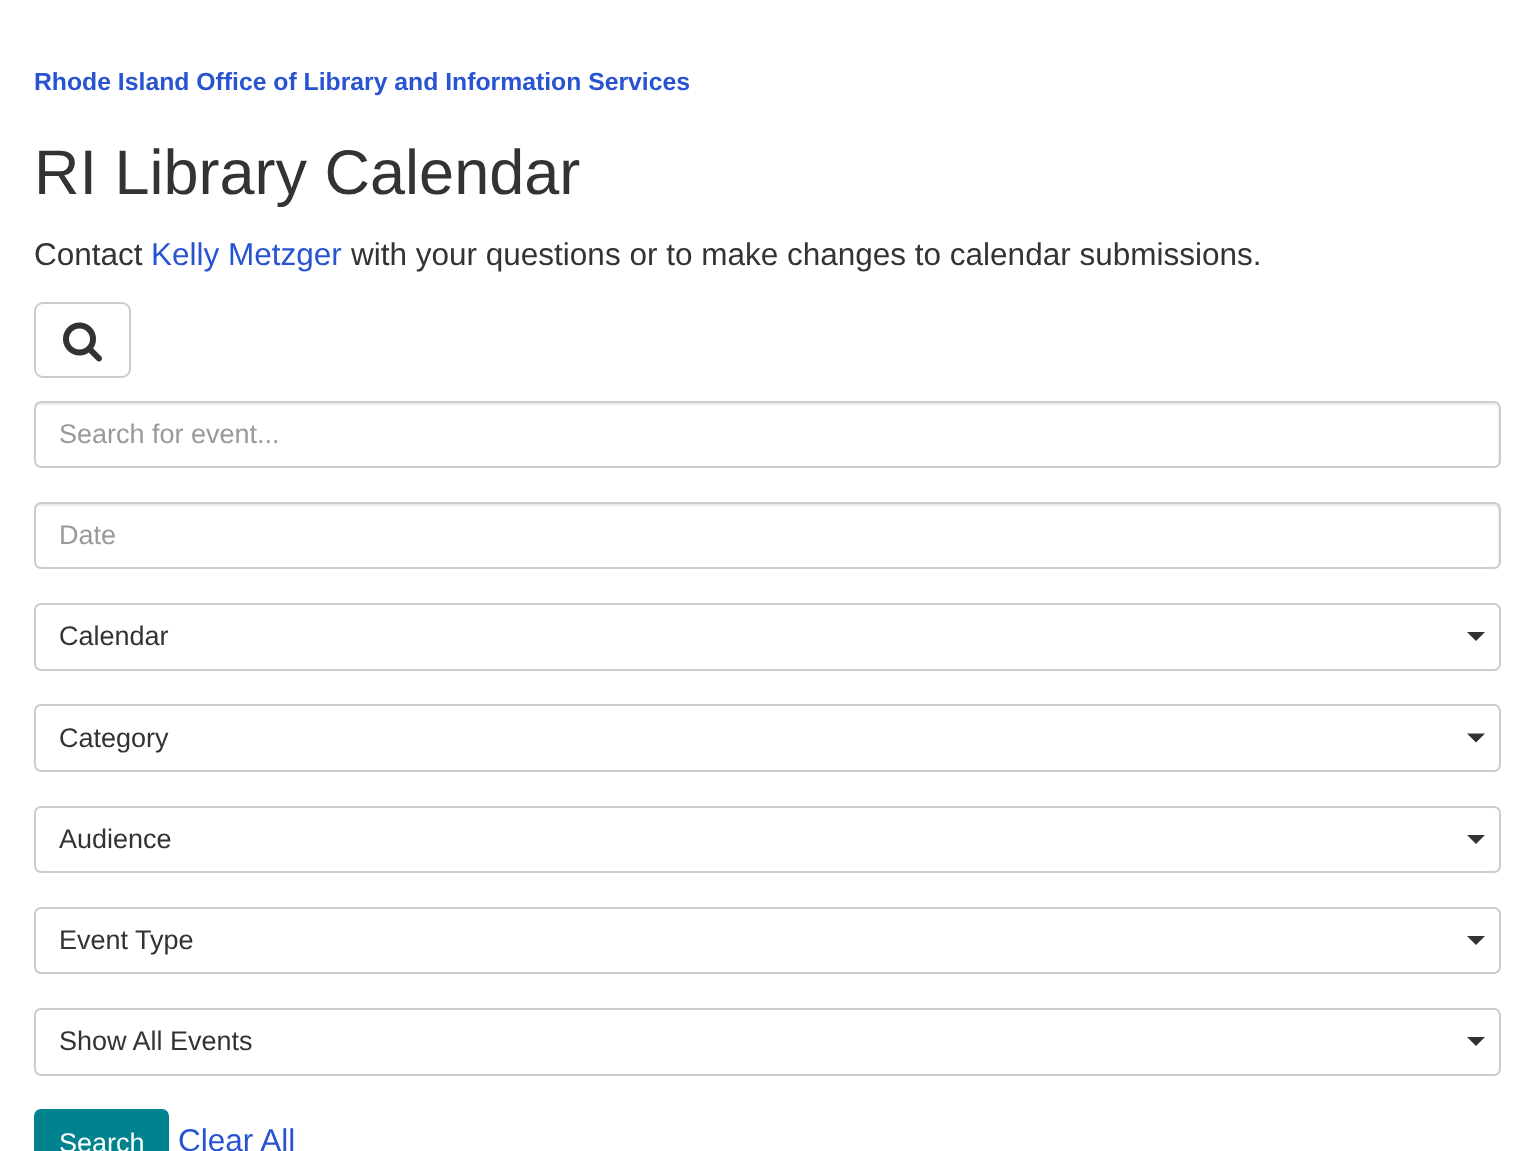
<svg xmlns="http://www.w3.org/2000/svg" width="1533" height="1151">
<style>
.a{font:bold 24.75px Liberation Sans;fill:#2954d1}
.b{font:63px Liberation Sans;fill:#333}
.c{font:31.5px Liberation Sans;fill:#333}
.d{font:31.5px Liberation Sans;fill:#2954d1}
.e{font:27px Liberation Sans;fill:#999}
.f{font:27px Liberation Sans;fill:#333}
.g{font:27px Liberation Sans;fill:#fff}
</style>
<rect width="100%" height="100%" fill="#fff"/>
<rect fill="none" stroke="#ccc" stroke-width="2" x="35" y="303" width="95" height="74" rx="8"/>
<image href="1.png" x="63" y="322" width="39" height="40"/>
<path fill="#ececec" d="M40 405h1454c2 0 4 2 4 5v54c1-1 1-2 1-3v-53c0-3-2-5-5-5h-1453c-3 0-5 2-5 5v2c0-3 2-5 4-5z"/>
<rect fill="none" stroke="#ccc" stroke-width="2" x="35" y="402" width="1465" height="65" rx="6"/>
<path fill="#ececec" d="M40 506h1454c2 0 4 2 4 5v54c1-1 1-2 1-3v-53c0-3-2-5-5-5h-1453c-3 0-5 2-5 5v2c0-3 2-5 4-5z"/>
<rect fill="none" stroke="#ccc" stroke-width="2" x="35" y="503" width="1465" height="65" rx="6"/>
<rect fill="none" stroke="#ccc" stroke-width="2" x="35" y="604" width="1465" height="66" rx="6"/>
<path fill="#333" d="M1467 632h18l-9 9z"/>
<rect fill="none" stroke="#ccc" stroke-width="2" x="35" y="705" width="1465" height="66" rx="6"/>
<path fill="#333" d="M1467 733.5h18l-9 9z"/>
<rect fill="none" stroke="#ccc" stroke-width="2" x="35" y="807" width="1465" height="65" rx="6"/>
<path fill="#333" d="M1467 835h18l-9 9z"/>
<rect fill="none" stroke="#ccc" stroke-width="2" x="35" y="908" width="1465" height="65" rx="6"/>
<path fill="#333" d="M1467 936h18l-9 9z"/>
<rect fill="none" stroke="#ccc" stroke-width="2" x="35" y="1009" width="1465" height="66" rx="6"/>
<path fill="#333" d="M1467 1037h18l-9 9z"/>
<rect fill="#00838f" stroke="#00838f" stroke-width="2" x="35" y="1110" width="133" height="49" rx="6"/>
<text class="a" x="34" y="90">Rhode Island Office of Library and Information Services</text>
<text class="b" x="34" y="194">RI Library Calendar</text>
<text class="c" x="34" y="265">Contact</text>
<text class="d" x="151" y="265">Kelly Metzger</text>
<text class="c" x="351" y="265">with your questions or to make changes to calendar submissions.</text>
<text class="e" x="59" y="443">Search for event...</text>
<text class="e" x="59" y="544">Date</text>
<text class="f" x="59" y="645">Calendar</text>
<text class="f" x="59" y="747">Category</text>
<text class="f" x="59" y="848">Audience</text>
<text class="f" x="59" y="949">Event Type</text>
<text class="f" x="59" y="1050">Show All Events</text>
<text class="g" x="59" y="1152">Search</text>
<text class="d" x="178" y="1151">Clear All</text>
</svg>
